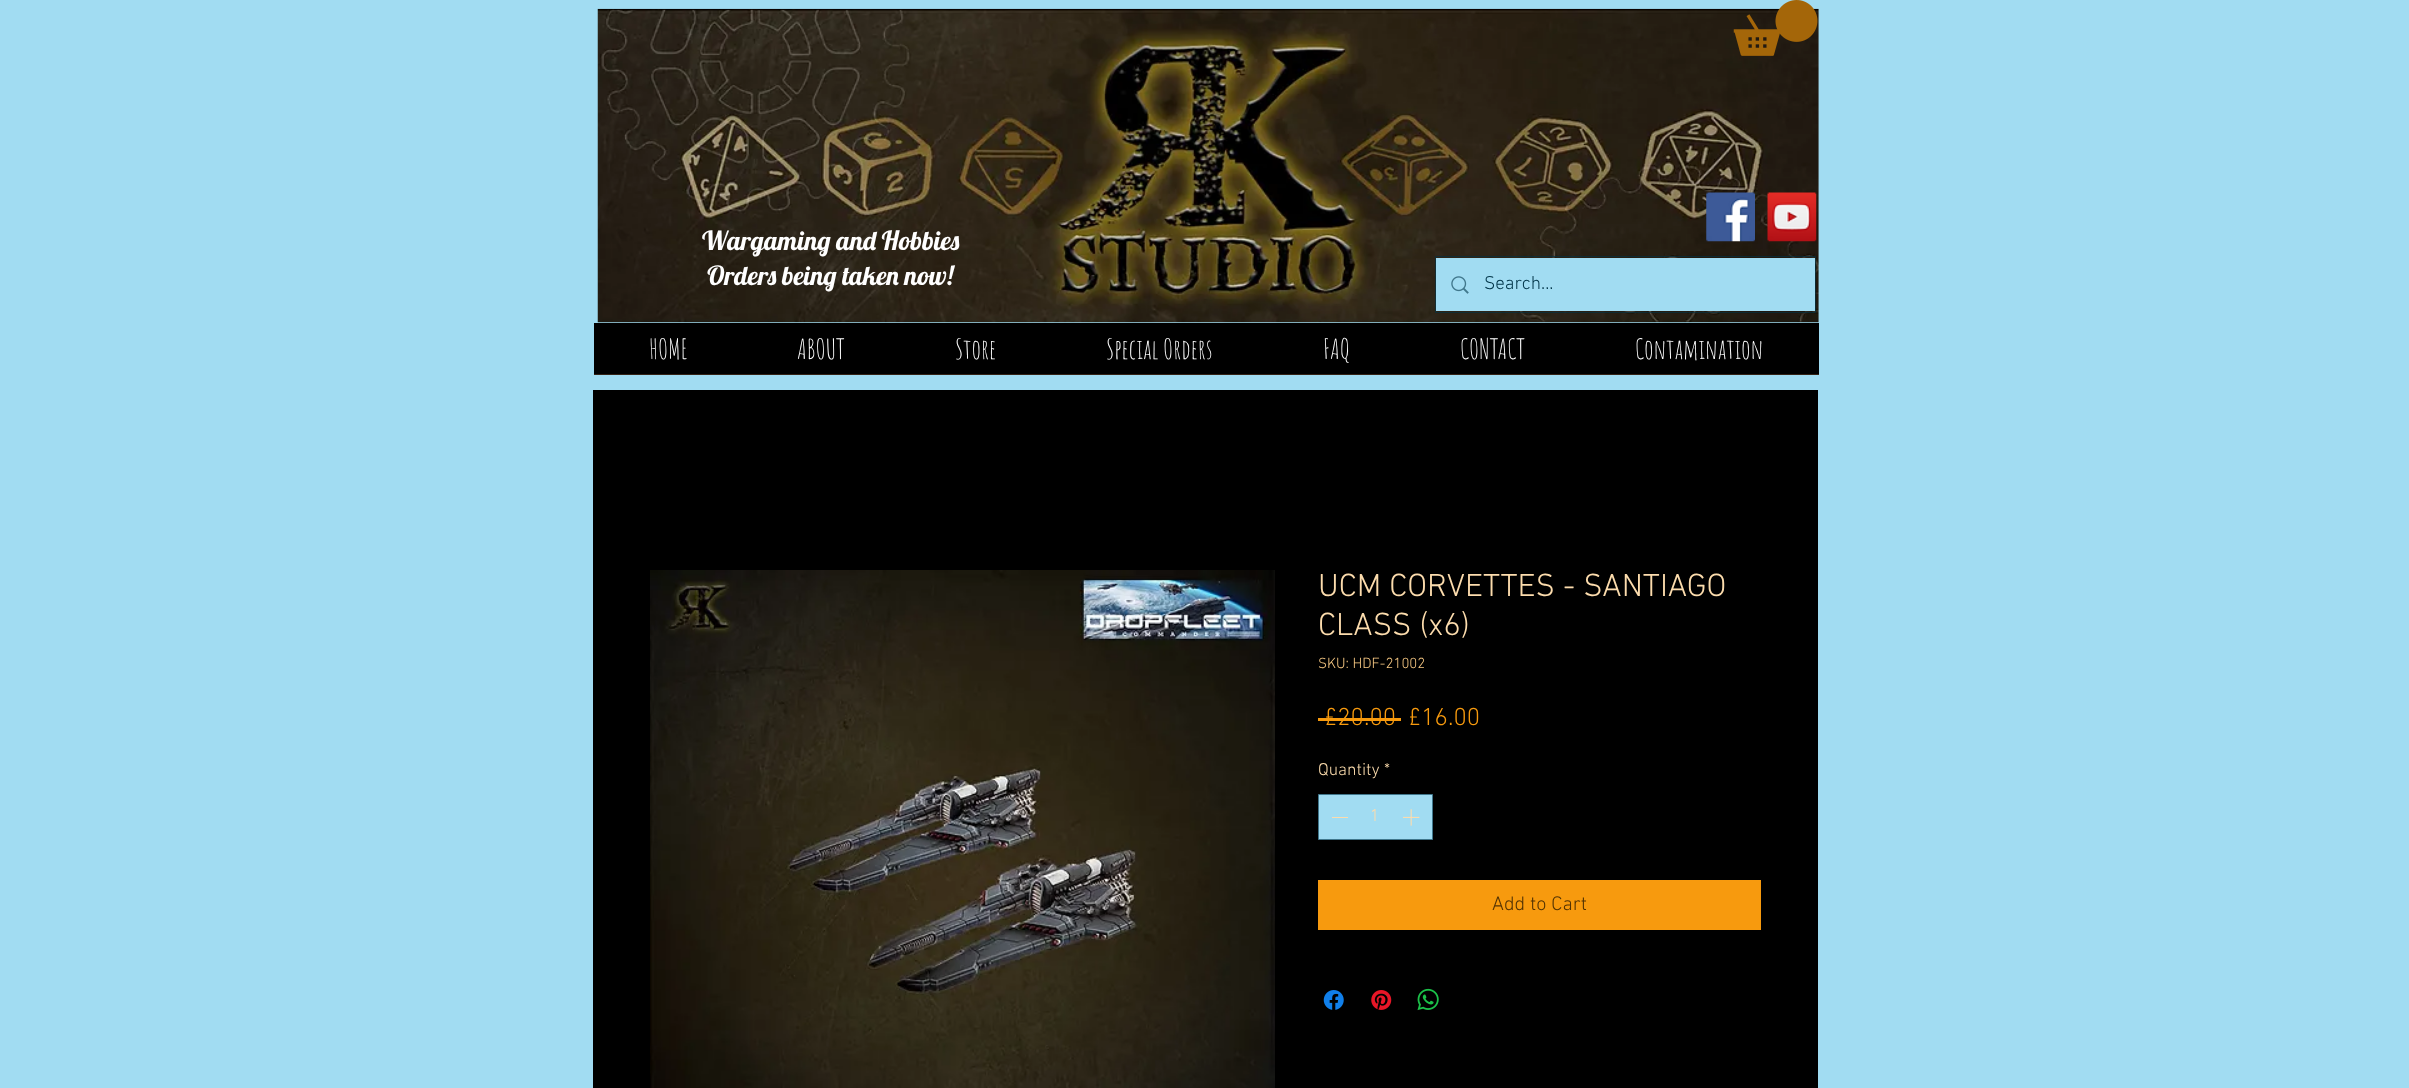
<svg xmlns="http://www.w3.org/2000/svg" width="2409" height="1088">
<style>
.a{font:26.25px Lobster;fill:#fff}
.b{font:300 19px 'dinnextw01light';fill:#003448}
.c{font:27.5px Amatic SC;fill:#fff}
.d{font:300 32.5px 'dinnextw01light';fill:#fcdcad}
.e{font:300 15px 'dinnextw01light';fill:#f9ca84}
.f{font:300 25px 'dinnextw01light';fill:#f79a0e}
.g{font:300 17.5px 'dinnextw01light';fill:#fcdcad}
.h{font:300 20px 'dinnextw01light';fill:#523304}
</style>
<rect width="100%" height="100%" fill="#a1dcf2"/>
<image href="2.png" x="597" y="8" width="1222" height="315"/>
<image href="1.png" x="1733" y="0" width="85" height="56"/>
<image href="3.png" x="1706" y="192" width="49" height="50"/>
<image href="4.png" x="1767" y="192" width="50" height="50"/>
<path fill="none" stroke="#00344899" d="M1435.5 256.5h380v56H1435.5z"/>
<path fill="#a1dcf2" d="M1436 258h379v53H1436z"/>
<image href="5.png" x="1451" y="276" width="18" height="18"/>
<path fill="#000" d="M594 323h1225v51H594z"/>
<path fill="#342216" d="M594 374h1225v1H594z"/>
<path fill="#000" d="M593 390h1225v698H593z"/>
<image href="6.png" x="650" y="570" width="625" height="518"/>
<path fill="#f79a0e" d="M1318 718h83v3H1318z"/>
<path fill="#a1dcf2" stroke="#40778c" d="M1318.5 794.5h114v45H1318.5z"/>
<path fill="#fcdcad" d="M1332 817h16v1H1332z"/>
<image href="7.png" x="1403" y="809" width="17" height="17"/>
<path fill="#f79a0e" d="M1318 880h443v50H1318z"/>
<image href="8.png" x="1323" y="990" width="21" height="20"/>
<image href="9.png" x="1371" y="990" width="21" height="20"/>
<image href="10.png" x="1417" y="988" width="22" height="23"/>
<text class="a" x="702" y="250">Wargaming and Hobbies</text>
<text class="a" x="707" y="285">Orders being taken now!</text>
<text class="b" x="1484" y="289">Search...</text>
<text class="c" x="649" y="359">HOME</text>
<text class="c" x="797" y="359">ABOUT</text>
<text class="c" x="955" y="359">Store</text>
<text class="c" x="1106" y="359">Special Orders</text>
<text class="c" x="1323" y="359">FAQ</text>
<text class="c" x="1460" y="359">CONTACT</text>
<text class="c" x="1635" y="359">Contamination</text>
<text class="d" x="1318" y="596">UCM CORVETTES - SANTIAGO</text>
<text class="d" x="1318" y="635">CLASS (x6)</text>
<text class="e" x="1318" y="668">SKU: HDF-21002</text>
<text class="f" x="1324" y="725">£20.00</text>
<text class="f" x="1408" y="725">£16.00</text>
<text class="g" x="1318" y="775">Quantity</text>
<text class="g" x="1384" y="775">*</text>
<text class="g" x="1370" y="821">1</text>
<text class="h" x="1492" y="910">Add to Cart</text>
</svg>
